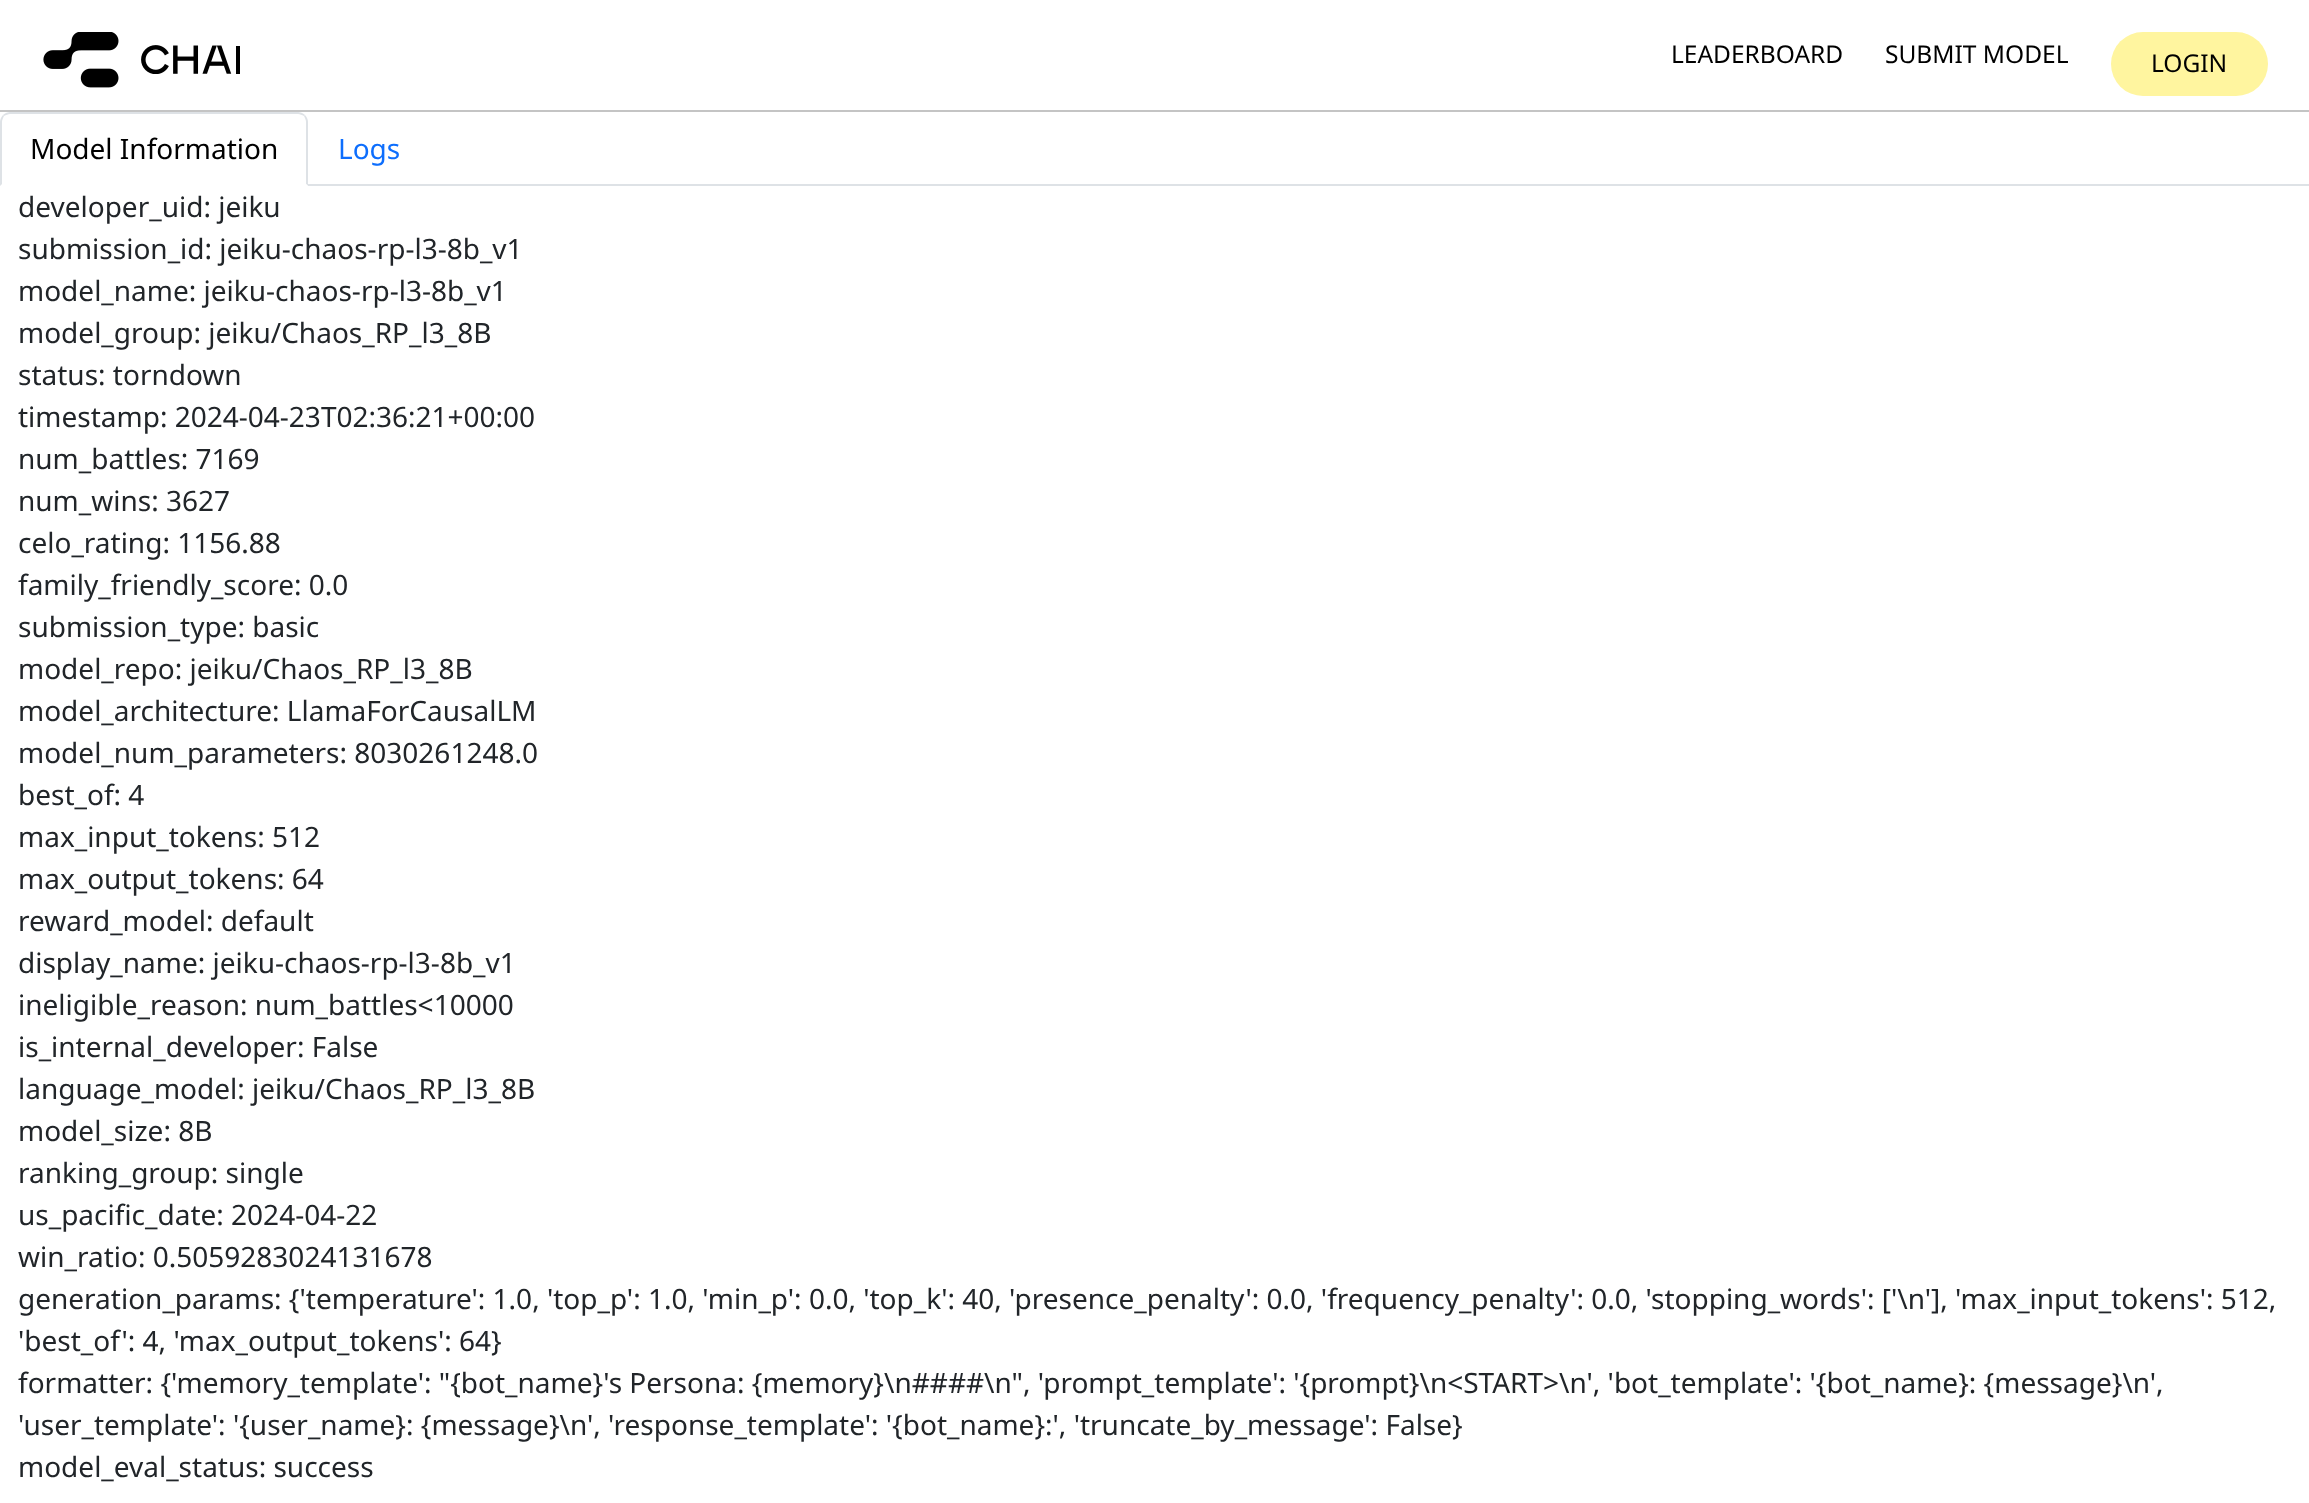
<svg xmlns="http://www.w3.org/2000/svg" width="2309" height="1503">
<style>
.a{font:24.5px Noto Sans;fill:#000}
.b{font:28px Noto Sans;fill:#000}
.c{font:28px Noto Sans;fill:#0d6efd}
.d{font:28px Noto Sans;fill:#212529}
</style>
<rect width="100%" height="100%" fill="#fff"/>
<path fill="#c4c4c4" d="M0 110h2309v2H0z"/>
<image href="1.png" x="43" y="32" width="197" height="56"/>
<rect fill="#fff59f" x="2111" y="32" width="157" height="64" rx="32"/>
<path fill="#dee2e6" d="M308 184h2001v2H308z"/>
<path fill="#dee2e6" d="M10 112c-2 0-5 1-7 3l1 1c2-1 4-2 6-2h288c2 0 4 1 6 2l1-1c-2-2-5-3-7-3z"/>
<path fill="#dee2e6" d="M308 186v-64c0-2-1-5-3-7l-1 1c1 2 2 4 2 6v62z"/>
<path fill="#fff" d="M308 186h-308l2-2h304z"/>
<path fill="#dee2e6" d="M0 186l2-2v-62c0-2 1-4 2-6l-1-1c-2 2-3 5-3 7z"/>
<text class="a" x="1671" y="63">LEADERBOARD</text>
<text class="a" x="1885" y="63">SUBMIT MODEL</text>
<text class="a" x="2151" y="72">LOGIN</text>
<text class="b" x="30" y="159">Model Information</text>
<text class="c" x="338" y="159">Logs</text>
<text class="d" x="18" y="217">developer_uid: jeiku</text>
<text class="d" x="18" y="259">submission_id: jeiku-chaos-rp-l3-8b_v1</text>
<text class="d" x="18" y="301">model_name: jeiku-chaos-rp-l3-8b_v1</text>
<text class="d" x="18" y="343">model_group: jeiku/Chaos_RP_l3_8B</text>
<text class="d" x="18" y="385">status: torndown</text>
<text class="d" x="18" y="427">timestamp: 2024-04-23T02:36:21+00:00</text>
<text class="d" x="18" y="469">num_battles: 7169</text>
<text class="d" x="18" y="511">num_wins: 3627</text>
<text class="d" x="18" y="553">celo_rating: 1156.88</text>
<text class="d" x="18" y="595">family_friendly_score: 0.0</text>
<text class="d" x="18" y="637">submission_type: basic</text>
<text class="d" x="18" y="679">model_repo: jeiku/Chaos_RP_l3_8B</text>
<text class="d" x="18" y="721">model_architecture: LlamaForCausalLM</text>
<text class="d" x="18" y="763">model_num_parameters: 8030261248.0</text>
<text class="d" x="18" y="805">best_of: 4</text>
<text class="d" x="18" y="847">max_input_tokens: 512</text>
<text class="d" x="18" y="889">max_output_tokens: 64</text>
<text class="d" x="18" y="931">reward_model: default</text>
<text class="d" x="18" y="973">display_name: jeiku-chaos-rp-l3-8b_v1</text>
<text class="d" x="18" y="1015">ineligible_reason: num_battles&lt;10000</text>
<text class="d" x="18" y="1057">is_internal_developer: False</text>
<text class="d" x="18" y="1099">language_model: jeiku/Chaos_RP_l3_8B</text>
<text class="d" x="18" y="1141">model_size: 8B</text>
<text class="d" x="18" y="1183">ranking_group: single</text>
<text class="d" x="18" y="1225">us_pacific_date: 2024-04-22</text>
<text class="d" x="18" y="1267">win_ratio: 0.5059283024131678</text>
<text class="d" x="18" y="1309">generation_params: {'temperature': 1.0, 'top_p': 1.0, 'min_p': 0.0, 'top_k': 40, 'presence_penalty': 0.0, 'frequency_penalty': 0.0, 'stopping_words': ['\n'], 'max_input_tokens': 512,</text>
<text class="d" x="18" y="1351">'best_of': 4, 'max_output_tokens': 64}</text>
<text class="d" x="18" y="1393">formatter: {'memory_template': "{bot_name}'s Persona: {memory}\n####\n", 'prompt_template': '{prompt}\n&lt;START&gt;\n', 'bot_template': '{bot_name}: {message}\n',</text>
<text class="d" x="18" y="1435">'user_template': '{user_name}: {message}\n', 'response_template': '{bot_name}:', 'truncate_by_message': False}</text>
<text class="d" x="18" y="1477">model_eval_status: success</text>
</svg>
